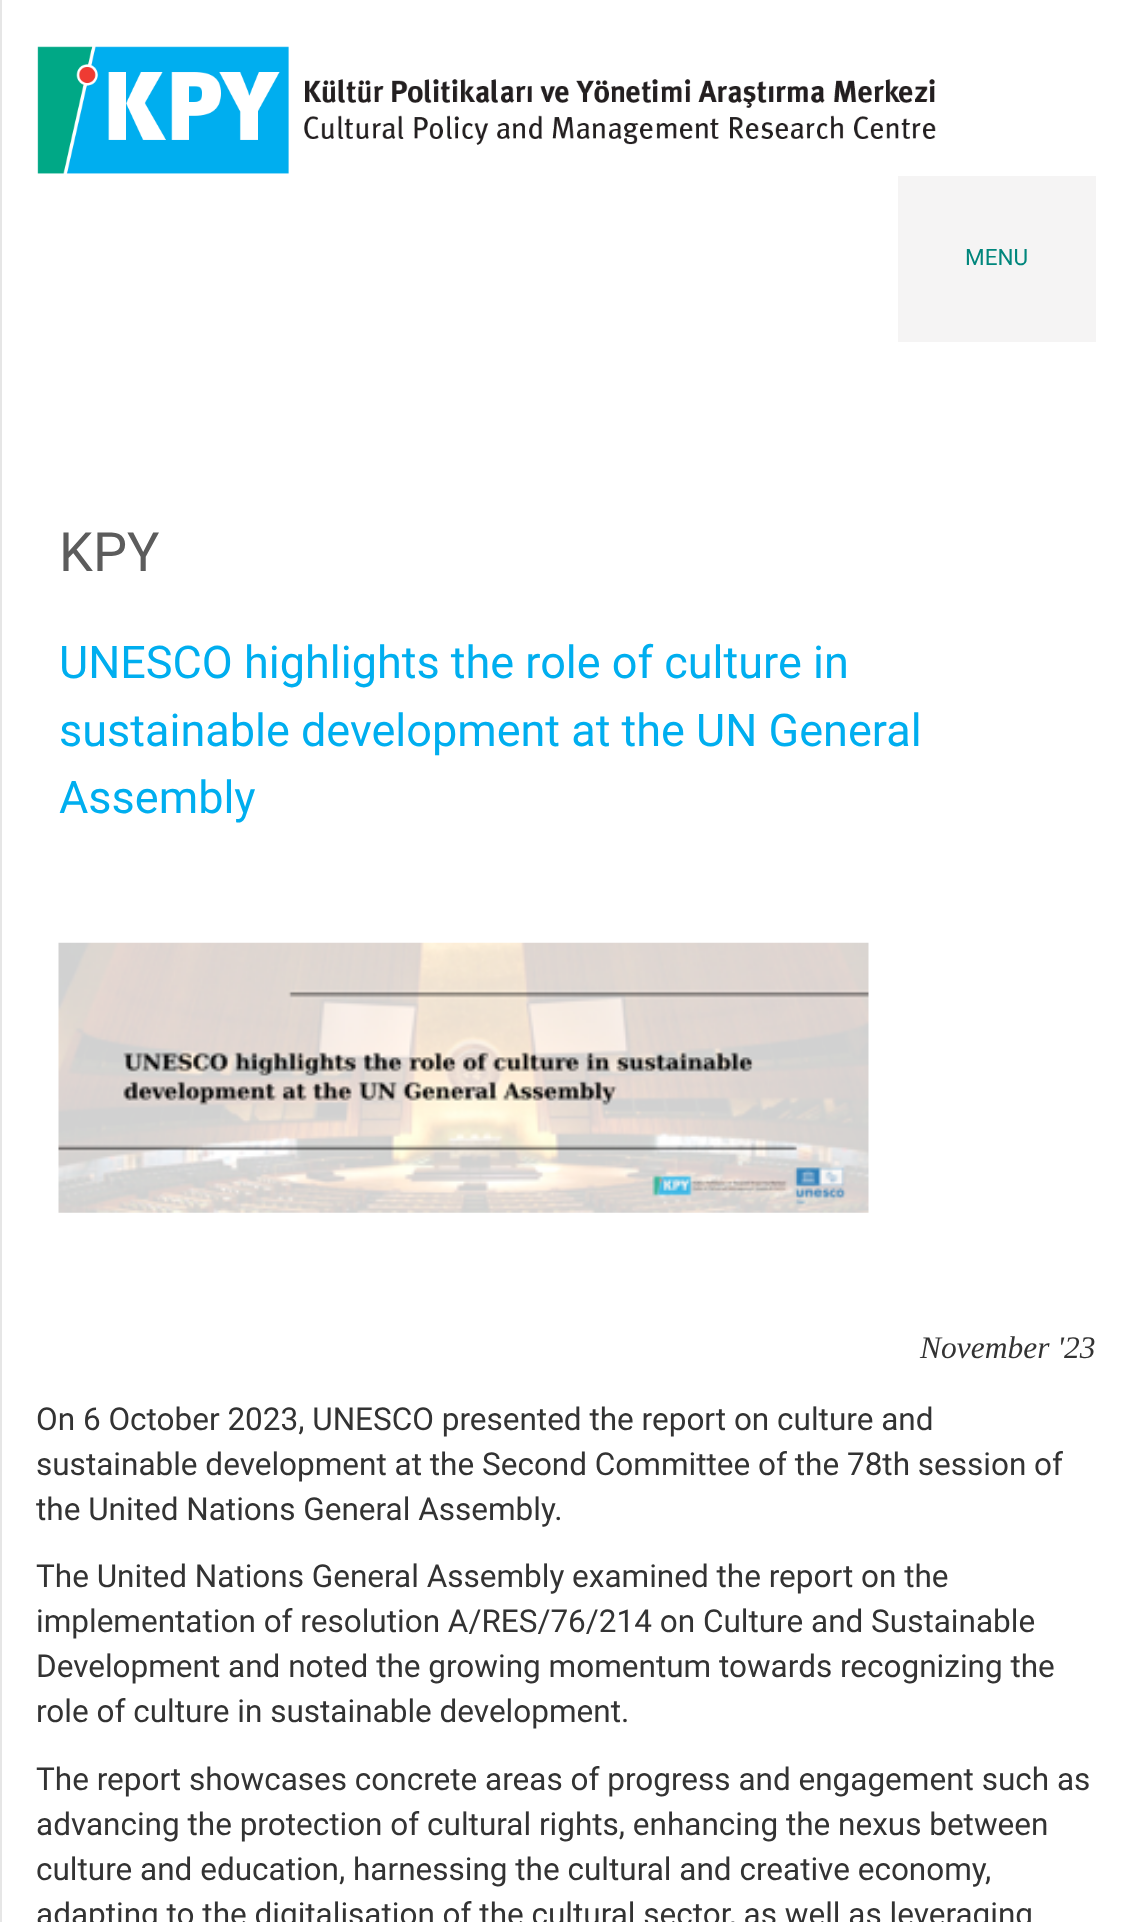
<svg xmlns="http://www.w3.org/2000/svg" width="1130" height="1922">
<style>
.a{font:22.5px Roboto;fill:#00867c}
.b{font:54px Roboto;fill:#5c5c5c}
.c{font:45px Roboto;fill:#00aeef}
.d{font:italic 31.5px Liberation Serif;fill:#333}
.e{font:31.5px Roboto;fill:#333}
</style>
<rect width="100%" height="100%" fill="#fff"/>
<image href="1.png" x="37" y="46" width="899" height="128"/>
<path fill="#f5f4f4" d="M898 176h198v166H898z"/>
<path fill="#e6e6e6" d="M0 0h2v1922H0z"/>
<image href="2.png" x="58" y="942" width="811" height="271"/>
<text class="a" x="965" y="265">MENU</text>
<text class="b" x="59" y="571">KPY</text>
<text class="c" x="59" y="678">UNESCO highlights the role of culture in</text>
<text class="c" x="59" y="746">sustainable development at the UN General</text>
<text class="c" x="59" y="813">Assembly</text>
<text class="d" x="920" y="1358">November '23</text>
<text class="e" x="36" y="1430">On 6 October 2023, UNESCO presented the report on culture and</text>
<text class="e" x="36" y="1475">sustainable development at the Second Committee of the 78th session of</text>
<text class="e" x="36" y="1520">the United Nations General Assembly.</text>
<text class="e" x="36" y="1587">The United Nations General Assembly examined the report on the</text>
<text class="e" x="36" y="1632">implementation of resolution A/RES/76/214 on Culture and Sustainable</text>
<text class="e" x="36" y="1677">Development and noted the growing momentum towards recognizing the</text>
<text class="e" x="36" y="1722">role of culture in sustainable development.</text>
<text class="e" x="36" y="1790">The report showcases concrete areas of progress and engagement such as</text>
<text class="e" x="36" y="1835">advancing the protection of cultural rights, enhancing the nexus between</text>
<text class="e" x="36" y="1880">culture and education, harnessing the cultural and creative economy,</text>
<text class="e" x="36" y="1925">adapting to the digitalisation of the cultural sector, as well as leveraging</text>
</svg>
